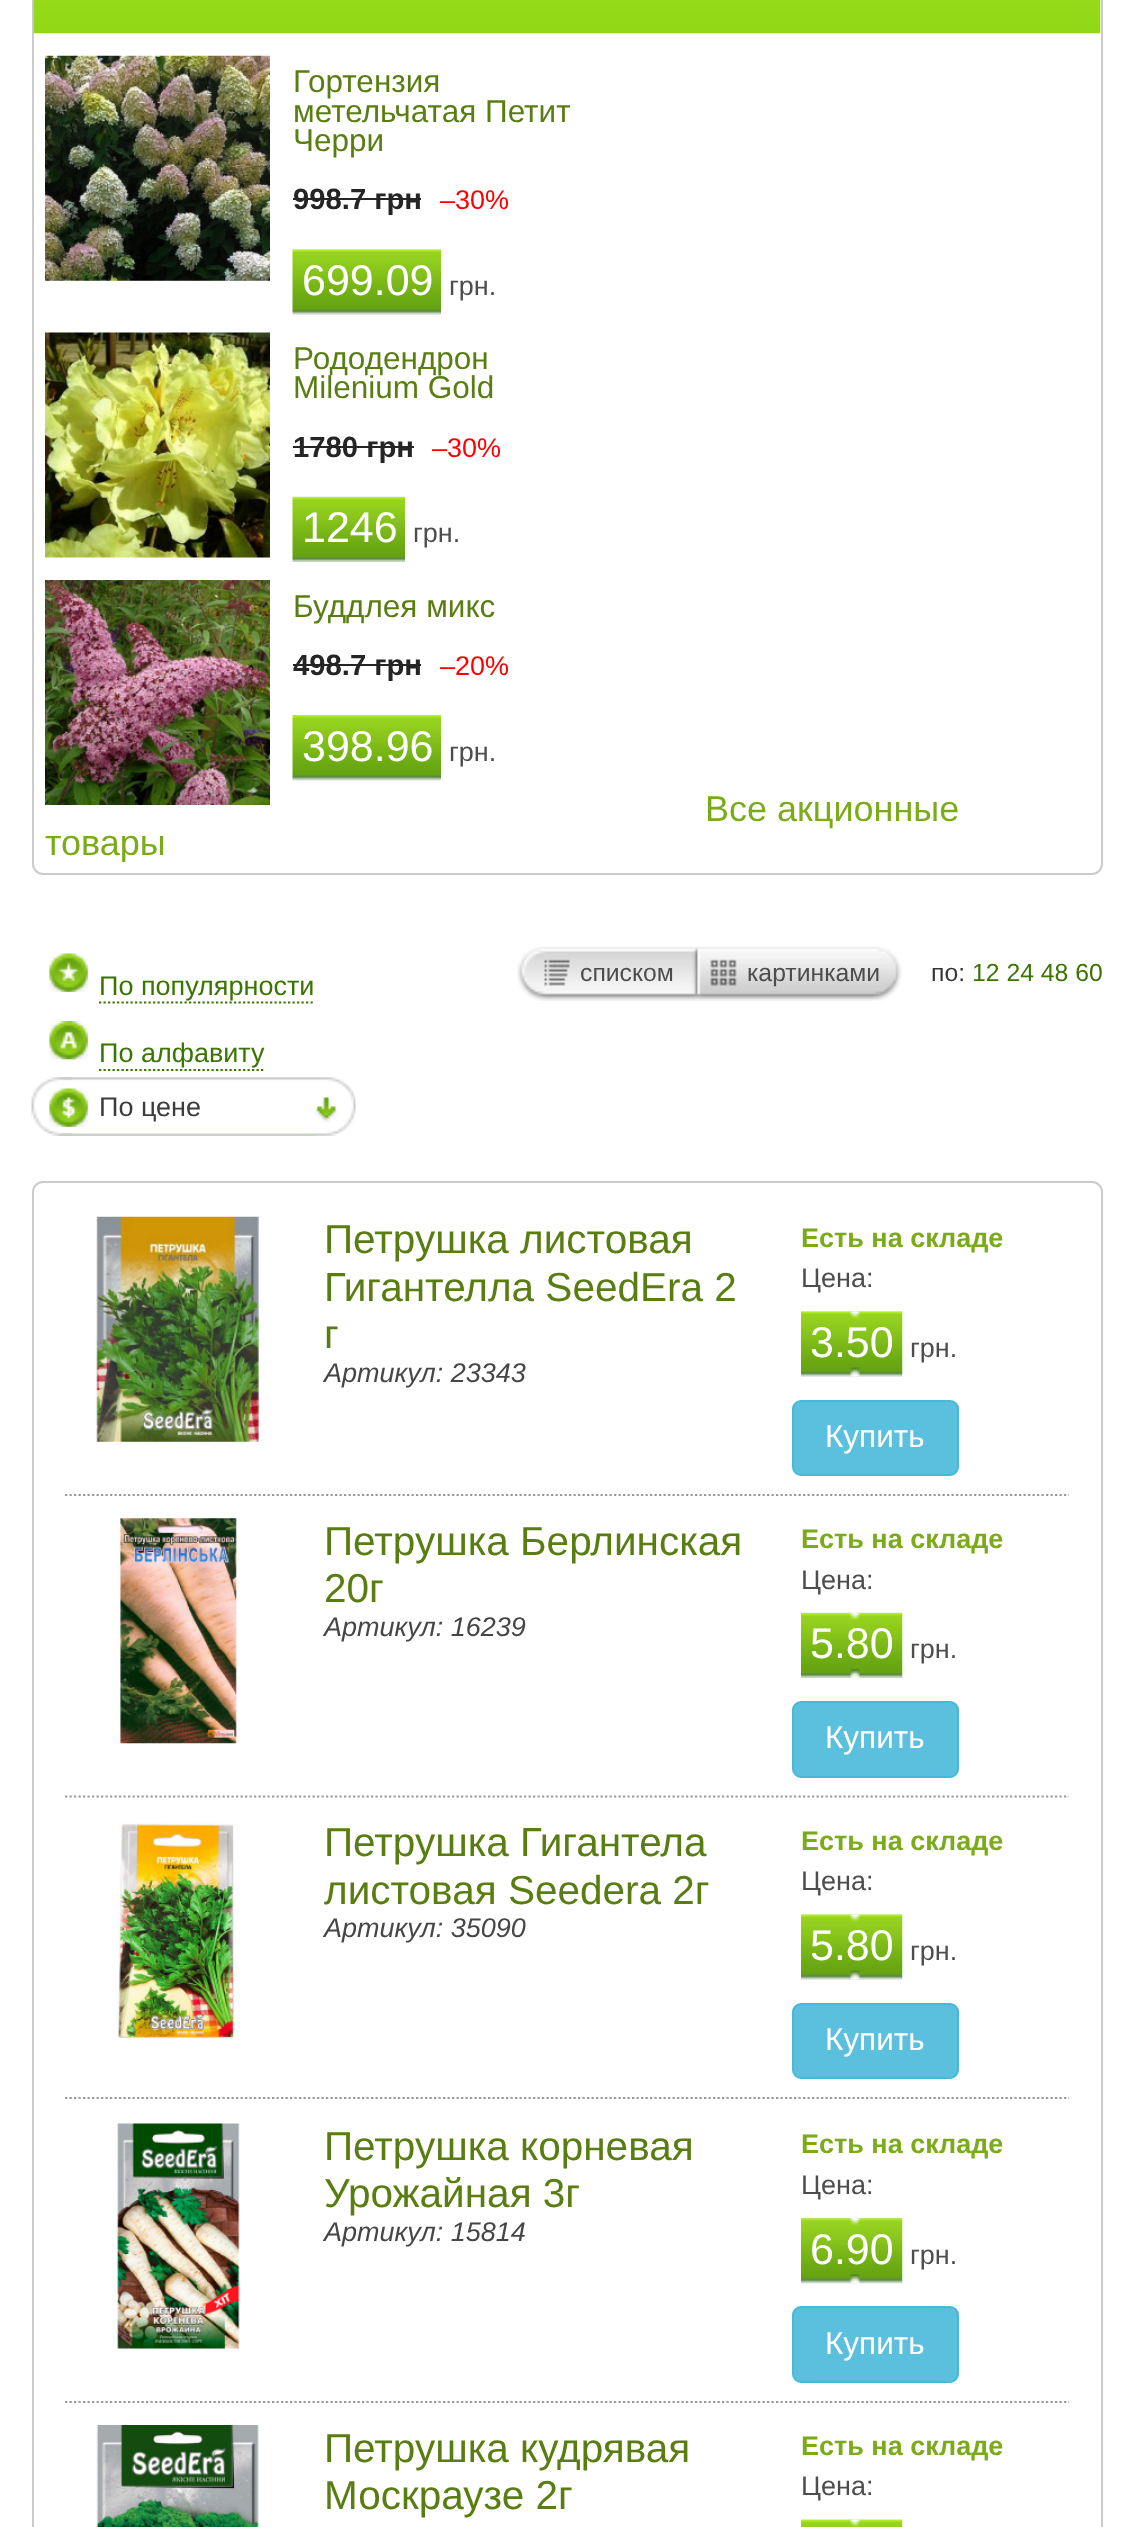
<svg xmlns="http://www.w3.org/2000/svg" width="1132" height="2527">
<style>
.a{font:31.5px Liberation Sans;fill:#5a7d12}
.b{font:bold 29.25px Liberation Sans;fill:#252525}
.c{font:27px Liberation Sans;fill:#f00}
.d{font:43px Liberation Sans;fill:#fff}
.e{font:27px Liberation Sans;fill:#4d4d4d}
.f{font:36px Liberation Sans;fill:#7bab19}
.g{font:27px Liberation Sans;fill:#3a7401}
.h{font:27px Liberation Sans;fill:#3c3c3c}
.i{font:24.75px Liberation Sans;fill:#4d4d4d}
.j{font:24.75px Liberation Sans;fill:#363636}
.k{font:24.75px Liberation Sans;fill:#3a7401}
.l{font:40.5px Liberation Sans;fill:#5a7d12}
.m{font:italic 27px Liberation Sans;fill:#464646}
.n{font:bold 27px Liberation Sans;fill:#7bab19}
.o{font:31.5px Liberation Sans;fill:#fff}
</style>
<defs>
<clipPath id="clip1"><path d="M45 45h1044v817H45z"/></clipPath>
</defs>
<rect width="100%" height="100%" fill="#fff"/>
<rect fill="none" stroke="#cbcbcb" stroke-width="2" x="33" y="-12" width="1069" height="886" rx="10"/>
<image href="1.png" x="33" y="0" width="1068" height="34"/>
<image href="2.png" x="45" y="55" width="225" height="226"/>
<path fill="#252525" d="M293 198h128v2H293z"/>
<image href="3.png" x="292" y="249" width="149" height="66"/>
<image href="4.png" x="45" y="332" width="225" height="226"/>
<path fill="#252525" d="M293 446h121v2H293z"/>
<image href="5.png" x="292" y="496" width="113" height="66"/>
<image href="6.png" x="45" y="580" width="225" height="225"/>
<path fill="#252525" d="M293 664h128v2H293z"/>
<image href="7.png" x="292" y="715" width="149" height="66"/>
<image href="8.png" x="49" y="953" width="39" height="39"/>
<path fill="none" stroke="#3a7401" stroke-width="2.2" stroke-dasharray="2.25 2.25" d="M99 1002.5h216"/>
<image href="9.png" x="49" y="1021" width="39" height="39"/>
<path fill="none" stroke="#3a7401" stroke-width="2.2" stroke-dasharray="2.25 2.25" d="M99 1070h166.5"/>
<image href="10.png" x="58" y="1077" width="257" height="59"/>
<image href="11.png" x="31" y="1077" width="41" height="59"/>
<image href="12.png" x="315" y="1077" width="41" height="59"/>
<image href="13.png" x="49" y="1088" width="39" height="39"/>
<image href="14.png" x="517" y="946" width="385" height="55"/>
<rect fill="none" stroke="#cbcbcb" stroke-width="2" x="33" y="1182" width="1069" height="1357" rx="10"/>
<path fill="none" stroke="#999" stroke-width="2.2" stroke-dasharray="2.25 2.25" d="M65 1495h1004"/>
<image href="15.png" x="95" y="1216" width="167" height="226"/>
<image href="16.png" x="801" y="1311" width="102" height="66"/>
<image href="17.png" x="850" y="1311" width="10" height="66"/>
<image href="18.png" x="950" y="1400" width="9" height="9"/>
<rect fill="#5bc0de" stroke="#46b8da" stroke-width="2" x="793" y="1401" width="165" height="74" rx="8"/>
<path fill="none" stroke="#999" stroke-width="2.2" stroke-dasharray="2.25 2.25" d="M65 1796.5h1004"/>
<image href="19.png" x="119" y="1518" width="118" height="226"/>
<image href="20.png" x="801" y="1612" width="102" height="66"/>
<image href="21.png" x="850" y="1612" width="10" height="66"/>
<image href="22.png" x="954" y="1702" width="5" height="8"/>
<rect fill="#5bc0de" stroke="#46b8da" stroke-width="2" x="793" y="1702" width="165" height="75" rx="8"/>
<path fill="none" stroke="#999" stroke-width="2.2" stroke-dasharray="2.25 2.25" d="M65 2098h1004"/>
<image href="23.png" x="116" y="1822" width="119" height="217"/>
<image href="16.png" x="801" y="1914" width="102" height="66"/>
<image href="17.png" x="850" y="1914" width="10" height="66"/>
<image href="18.png" x="950" y="2003" width="9" height="9"/>
<rect fill="#5bc0de" stroke="#46b8da" stroke-width="2" x="793" y="2004" width="165" height="74" rx="8"/>
<path fill="none" stroke="#999" stroke-width="2.2" stroke-dasharray="2.25 2.25" d="M65 2402h1004"/>
<image href="24.png" x="116" y="2123" width="124" height="226"/>
<image href="25.png" x="801" y="2218" width="102" height="66"/>
<image href="26.png" x="850" y="2218" width="10" height="65"/>
<image href="27.png" x="954" y="2307" width="5" height="8"/>
<rect fill="#5bc0de" stroke="#46b8da" stroke-width="2" x="793" y="2307" width="165" height="75" rx="8"/>
<image href="28.png" x="96" y="2425" width="164" height="102"/>
<image href="29.png" x="801" y="2519" width="102" height="8"/>
<image href="30.png" x="850" y="2519" width="10" height="8"/>
<text class="a" x="293" y="92">Гортензия</text>
<text class="a" x="293" y="122">метельчатая Петит</text>
<text class="a" x="293" y="151">Черри</text>
<text class="b" x="293" y="209">998.7 грн</text>
<text class="c" x="440" y="209">–30%</text>
<text class="d" x="302" y="295">699.09</text>
<text class="e" x="449" y="295">грн.</text>
<text class="a" x="293" y="369">Рододендрон</text>
<text class="a" x="293" y="398">Milenium Gold</text>
<text class="b" x="293" y="457">1780 грн</text>
<text class="c" x="432" y="457">–30%</text>
<text class="d" x="302" y="542">1246</text>
<text class="e" x="413" y="542">грн.</text>
<text class="a" x="293" y="617">Буддлея микс</text>
<text class="b" x="293" y="675">498.7 грн</text>
<text class="c" x="440" y="675">–20%</text>
<text class="d" x="302" y="761">398.96</text>
<text class="e" x="449" y="761">грн.</text>
<text class="f" x="705" y="821">Все акционные</text>
<g clip-path="url(#clip1)">
<text class="f" x="45" y="855">товары</text>
</g>
<text class="g" x="99" y="995">По популярности</text>
<text class="g" x="99" y="1062">По алфавиту</text>
<text class="h" x="99" y="1116">По цене</text>
<text class="i" x="580" y="981">списком</text>
<text class="i" x="747" y="981">картинками</text>
<text class="j" x="931" y="981">по:</text>
<text class="k" x="972" y="981">12 24 48 60</text>
<text class="l" x="324" y="1253">Петрушка листовая</text>
<text class="l" x="324" y="1301">Гигантелла SeedEra 2</text>
<text class="l" x="324" y="1348">г</text>
<text class="m" x="324" y="1382">Артикул: 23343</text>
<text class="n" x="801" y="1247">Есть на складе</text>
<text class="e" x="801" y="1287">Цена:</text>
<text class="d" x="810" y="1357">3.50</text>
<text class="e" x="910" y="1357">грн.</text>
<text class="o" x="825" y="1447">Купить</text>
<text class="l" x="324" y="1555">Петрушка Берлинская</text>
<text class="l" x="324" y="1602">20г</text>
<text class="m" x="324" y="1636">Артикул: 16239</text>
<text class="n" x="801" y="1548">Есть на складе</text>
<text class="e" x="801" y="1589">Цена:</text>
<text class="d" x="810" y="1658">5.80</text>
<text class="e" x="910" y="1658">грн.</text>
<text class="o" x="825" y="1748">Купить</text>
<text class="l" x="324" y="1856">Петрушка Гигантела</text>
<text class="l" x="324" y="1904">листовая Seedera 2г</text>
<text class="m" x="324" y="1937">Артикул: 35090</text>
<text class="n" x="801" y="1850">Есть на складе</text>
<text class="e" x="801" y="1890">Цена:</text>
<text class="d" x="810" y="1960">5.80</text>
<text class="e" x="910" y="1960">грн.</text>
<text class="o" x="825" y="2050">Купить</text>
<text class="l" x="324" y="2160">Петрушка корневая</text>
<text class="l" x="324" y="2207">Урожайная 3г</text>
<text class="m" x="324" y="2241">Артикул: 15814</text>
<text class="n" x="801" y="2153">Есть на складе</text>
<text class="e" x="801" y="2194">Цена:</text>
<text class="d" x="810" y="2264">6.90</text>
<text class="e" x="910" y="2264">грн.</text>
<text class="o" x="825" y="2354">Купить</text>
<text class="l" x="324" y="2462">Петрушка кудрявая</text>
<text class="l" x="324" y="2509">Москраузе 2г</text>
<text class="n" x="801" y="2455">Есть на складе</text>
<text class="e" x="801" y="2495">Цена:</text>
</svg>
